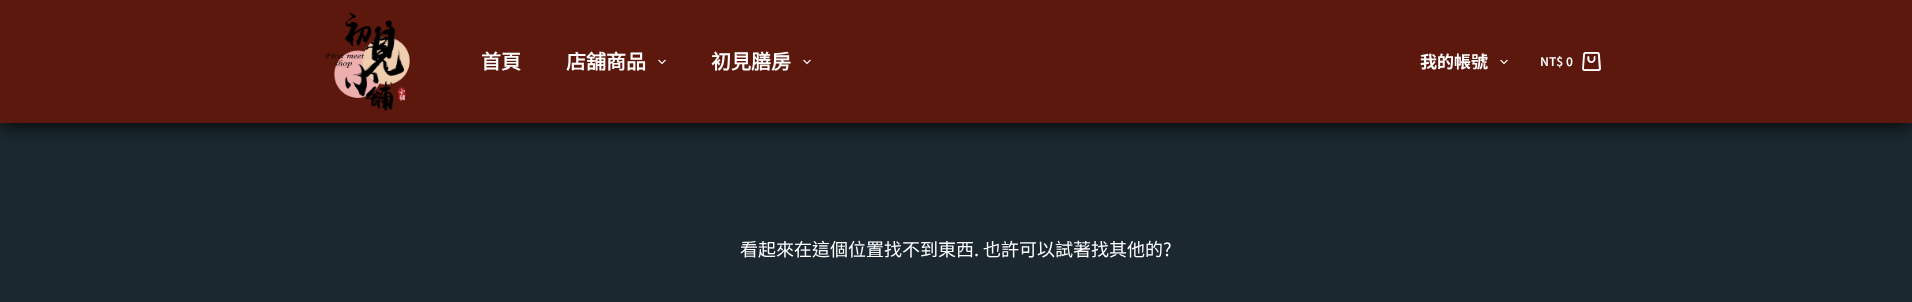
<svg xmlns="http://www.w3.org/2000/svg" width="1912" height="302">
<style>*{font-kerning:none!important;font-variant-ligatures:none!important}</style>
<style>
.a{font:bold 20px Noto Sans CJK TC;fill:#fff}
.b{font:bold 17px Noto Sans TC;fill:#fff}
.c{font:600 12px Noto Sans TC;fill:#fff}
.d{font:18px Noto Sans TC;fill:#fff}
</style>
<rect width="100%" height="100%" fill="#1b282f"/>
<path fill="#000" filter="blur(10px)" d="M0 1h1912v123H0z"/>
<path fill="#5c180d" d="M0 0h1912v123H0z"/>
<image href="1.png" x="325" y="12" width="85" height="100"/>
<image href="2.png" x="658" y="59" width="8" height="6"/>
<image href="2.png" x="803" y="59" width="8" height="6"/>
<image href="2.png" x="1500" y="59" width="8" height="6"/>
<image href="3.png" x="1582" y="52" width="19" height="19"/>
<text class="a" x="481" y="69">首頁</text>
<text class="a" x="566" y="69">店舖商品</text>
<text class="a" x="711" y="69">初見膳房</text>
<text class="b" x="1420" y="68">我的帳號</text>
<text class="c" x="1540" y="66">NT$ 0</text>
<text class="d" x="740" y="256">看起來在這個位置找不到東西. 也許可以試著找其他的?</text>
</svg>
